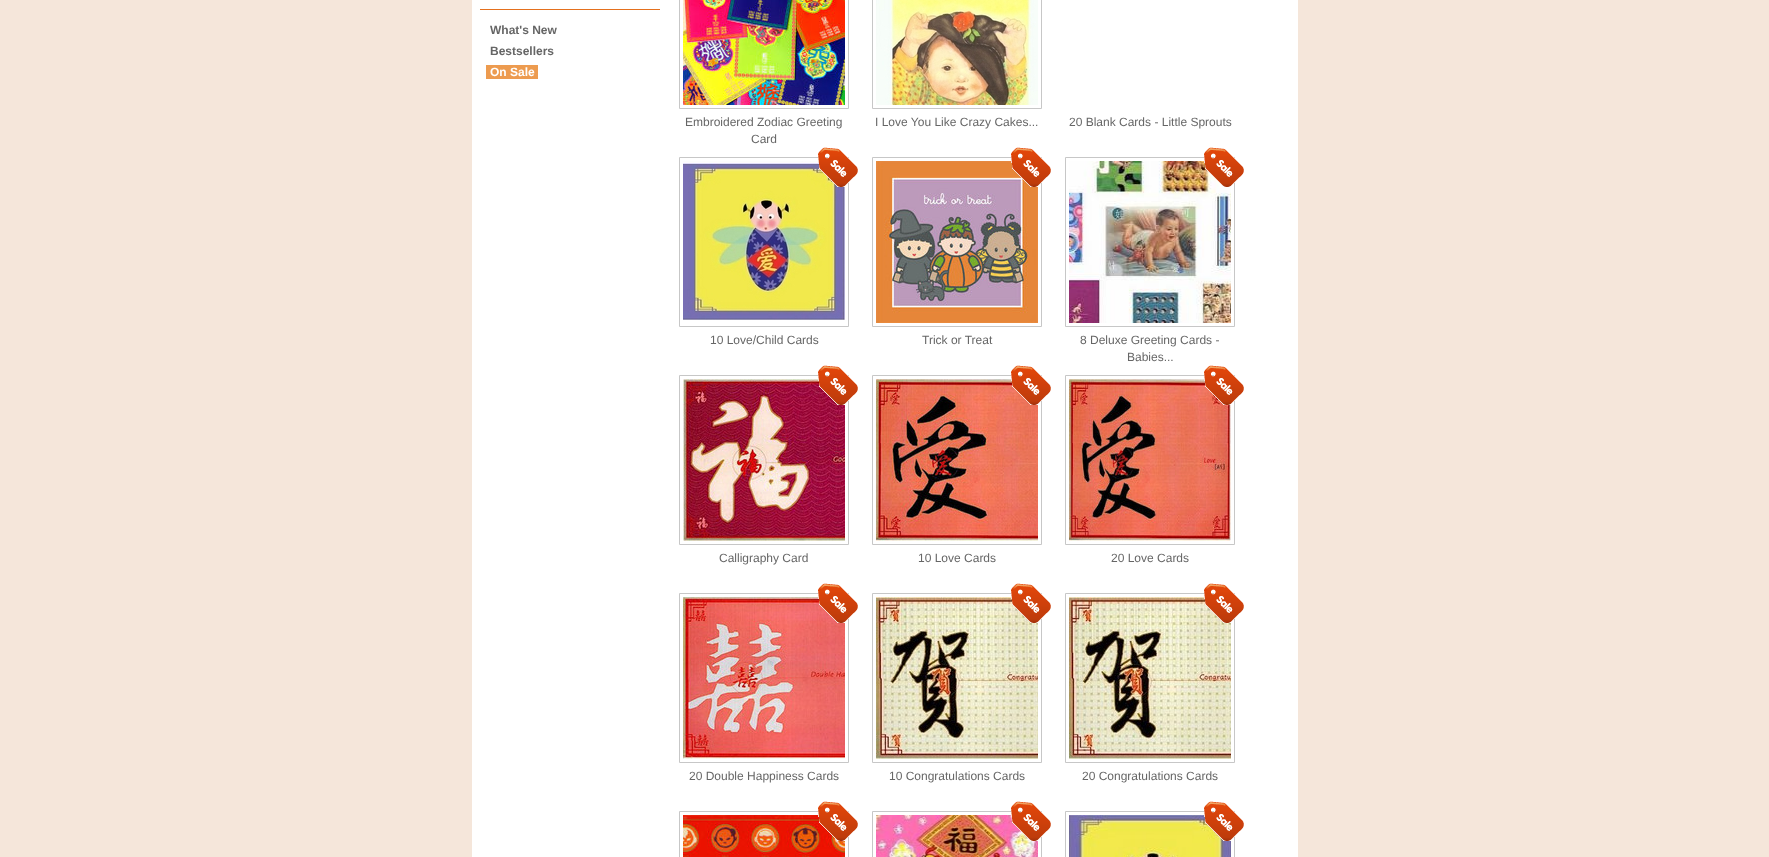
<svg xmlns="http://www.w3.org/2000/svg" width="1769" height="857">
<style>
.a{font:bold 12px Liberation Sans;fill:#666}
.b{font:bold 12px Liberation Sans;fill:#fff}
.c{font:12px Liberation Sans;fill:#666}
</style>
<rect width="100%" height="100%" fill="#f5e6da"/>
<path fill="#fff" d="M472 0h826v857H472z"/>
<path fill="#e4701e" d="M480 9h180v1H480z"/>
<path fill="#ed9b4f" d="M486 65h52v14H486z"/>
<path fill="none" stroke="#c7c7c7" d="M679.5 -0.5h169v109H679.5z"/>
<image href="1.png" x="683" y="0" width="162" height="105"/>
<path fill="none" stroke="#c7c7c7" d="M872.5 -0.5h169v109H872.5z"/>
<image href="2.png" x="876" y="0" width="162" height="105"/>
<path fill="none" stroke="#c7c7c7" d="M679.5 157.5h169v169H679.5z"/>
<image href="4.png" x="683" y="161" width="162" height="159"/>
<image href="3.png" x="818" y="147" width="40" height="40"/>
<path fill="none" stroke="#c7c7c7" d="M872.5 157.5h169v169H872.5z"/>
<image href="6.png" x="876" y="161" width="162" height="162"/>
<image href="5.png" x="1011" y="147" width="40" height="40"/>
<path fill="none" stroke="#c7c7c7" d="M1065.5 157.5h169v169H1065.5z"/>
<image href="8.png" x="1069" y="161" width="162" height="162"/>
<image href="7.png" x="1204" y="147" width="40" height="40"/>
<path fill="none" stroke="#c7c7c7" d="M679.5 375.5h169v169H679.5z"/>
<image href="10.png" x="683" y="379" width="162" height="162"/>
<image href="9.png" x="818" y="365" width="40" height="40"/>
<path fill="none" stroke="#c7c7c7" d="M872.5 375.5h169v169H872.5z"/>
<image href="12.png" x="876" y="379" width="162" height="162"/>
<image href="11.png" x="1011" y="365" width="40" height="40"/>
<path fill="none" stroke="#c7c7c7" d="M1065.5 375.5h169v169H1065.5z"/>
<image href="14.png" x="1069" y="379" width="162" height="162"/>
<image href="13.png" x="1204" y="365" width="40" height="40"/>
<path fill="none" stroke="#c7c7c7" d="M679.5 593.5h169v169H679.5z"/>
<image href="16.png" x="683" y="597" width="162" height="162"/>
<image href="15.png" x="818" y="583" width="40" height="40"/>
<path fill="none" stroke="#c7c7c7" d="M872.5 593.5h169v169H872.5z"/>
<image href="18.png" x="876" y="597" width="162" height="162"/>
<image href="17.png" x="1011" y="583" width="40" height="40"/>
<path fill="none" stroke="#c7c7c7" d="M1065.5 593.5h169v169H1065.5z"/>
<image href="20.png" x="1069" y="597" width="162" height="162"/>
<image href="19.png" x="1204" y="583" width="40" height="40"/>
<path fill="none" stroke="#c7c7c7" d="M679.5 811.5h169v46H679.5z"/>
<image href="22.png" x="683" y="815" width="162" height="42"/>
<image href="21.png" x="818" y="801" width="40" height="40"/>
<path fill="none" stroke="#c7c7c7" d="M872.5 811.5h169v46H872.5z"/>
<image href="24.png" x="876" y="815" width="162" height="42"/>
<image href="23.png" x="1011" y="801" width="40" height="40"/>
<path fill="none" stroke="#c7c7c7" d="M1065.5 811.5h169v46H1065.5z"/>
<image href="26.png" x="1069" y="815" width="162" height="42"/>
<image href="25.png" x="1204" y="801" width="40" height="40"/>
<text class="a" x="490" y="34">What's New</text>
<text class="a" x="490" y="55">Bestsellers</text>
<text class="b" x="490" y="76">On Sale</text>
<text class="c" x="685" y="126">Embroidered Zodiac Greeting</text>
<text class="c" x="751" y="143">Card</text>
<text class="c" x="875" y="126">I Love You Like Crazy Cakes...</text>
<text class="c" x="1069" y="126">20 Blank Cards - Little Sprouts</text>
<text class="c" x="710" y="344">10 Love/Child Cards</text>
<text class="c" x="922" y="344">Trick or Treat</text>
<text class="c" x="1080" y="344">8 Deluxe Greeting Cards -</text>
<text class="c" x="1127" y="361">Babies...</text>
<text class="c" x="719" y="562">Calligraphy Card</text>
<text class="c" x="918" y="562">10 Love Cards</text>
<text class="c" x="1111" y="562">20 Love Cards</text>
<text class="c" x="689" y="780">20 Double Happiness Cards</text>
<text class="c" x="889" y="780">10 Congratulations Cards</text>
<text class="c" x="1082" y="780">20 Congratulations Cards</text>
</svg>
